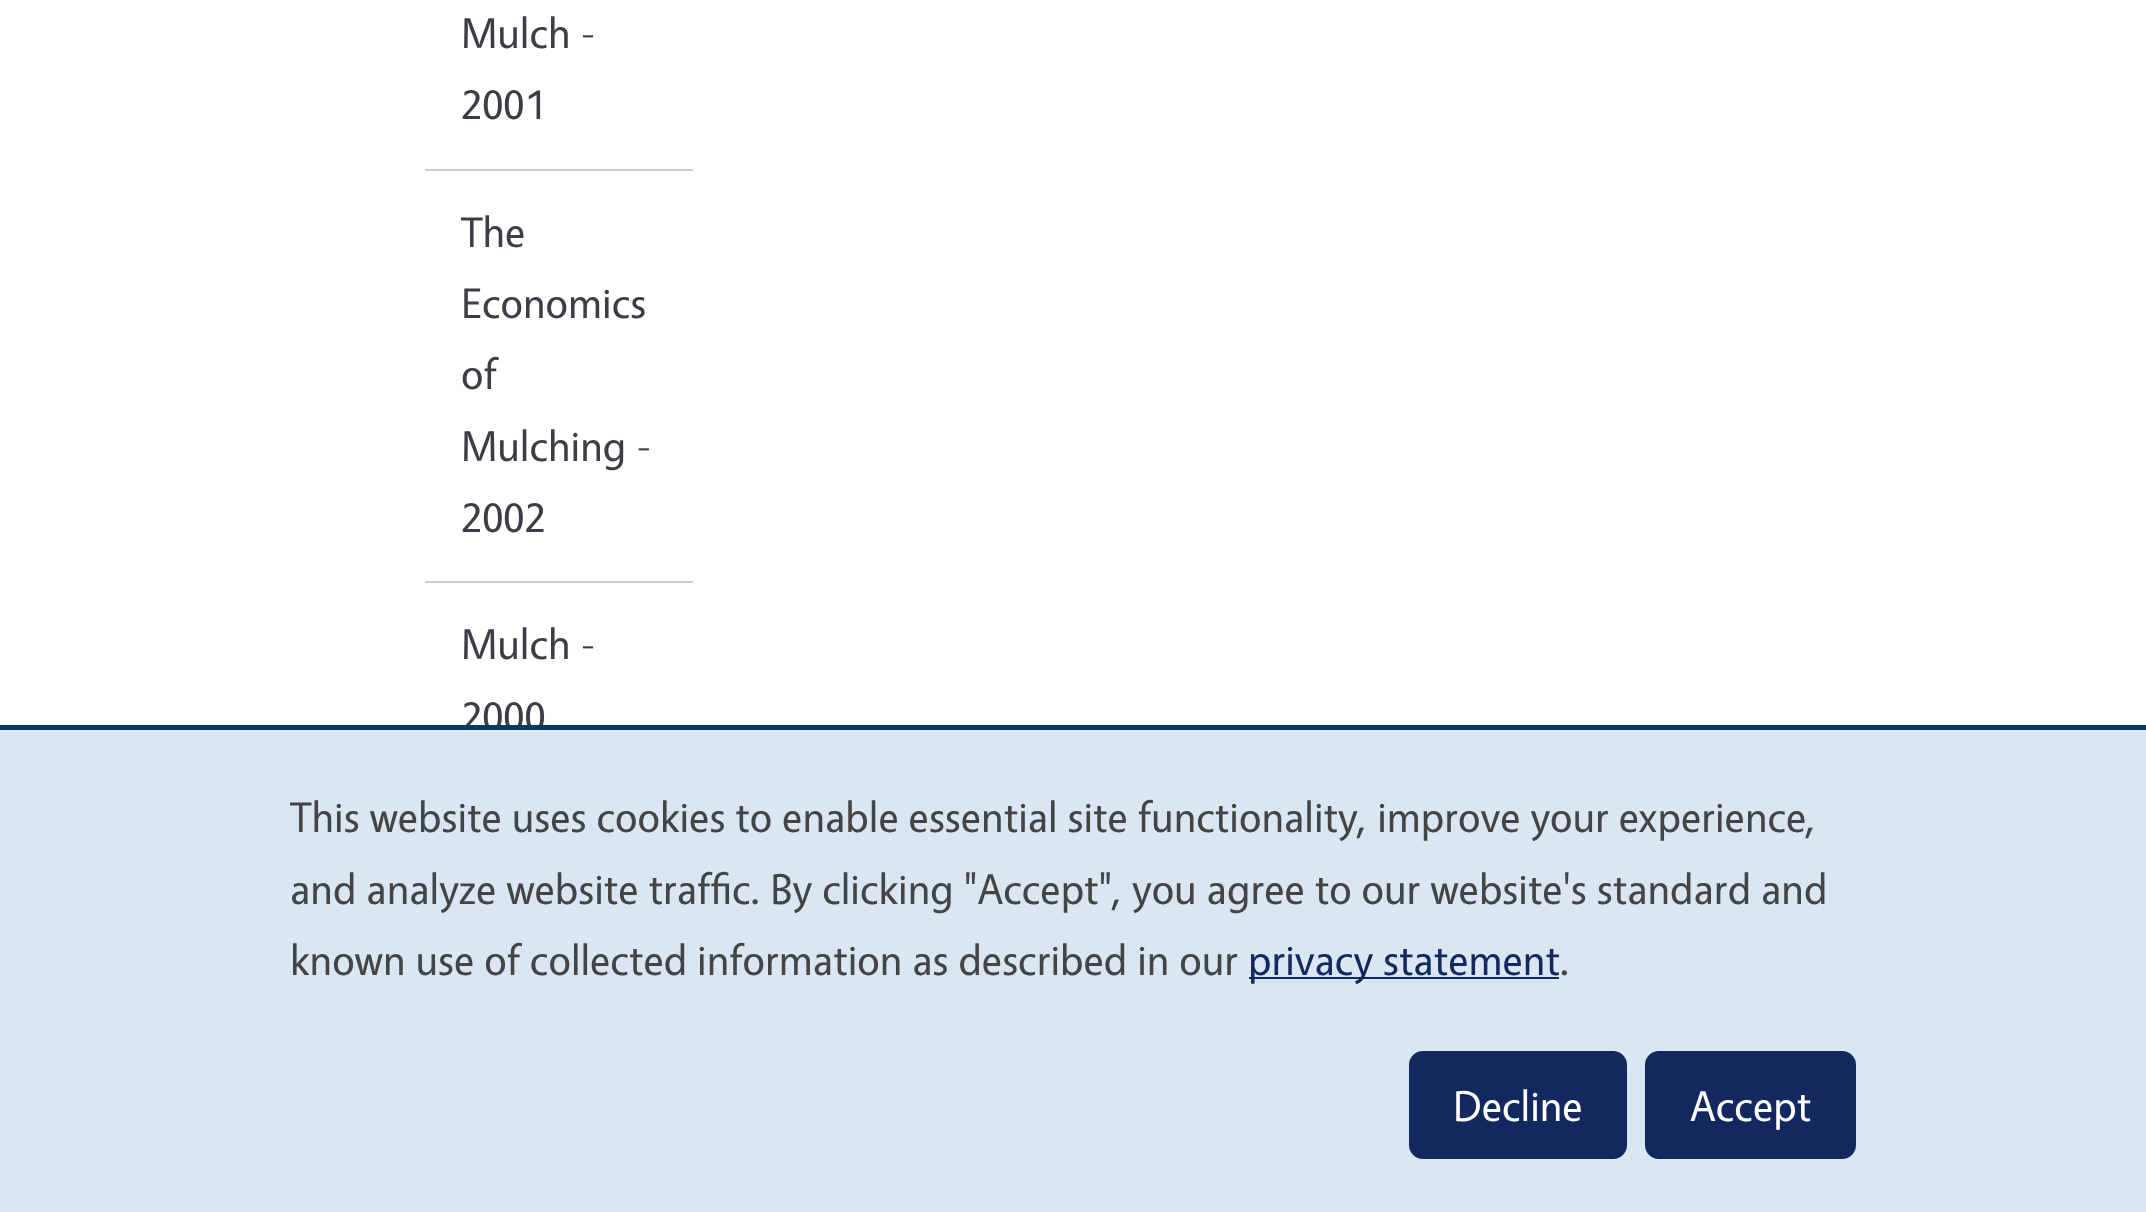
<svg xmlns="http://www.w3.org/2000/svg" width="2146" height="1212">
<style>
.a{font:43.2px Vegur;fill:#3d3d47}
.b{font:43.2px Vegur;fill:#444}
.c{font:43.2px Vegur;fill:#12285f}
.d{font:43.2px Vegur;fill:#fff}
</style>
<rect width="100%" height="100%" fill="#fff"/>
<path fill="#ccc" d="M425 169h268v2H425z"/>
<path fill="#ccc" d="M425 581h268v2H425z"/>
<text class="a" x="461" y="48">Mulch -</text>
<text class="a" x="461" y="119">2001</text>
<text class="a" x="461" y="247">The</text>
<text class="a" x="461" y="318">Economics</text>
<text class="a" x="461" y="389">of</text>
<text class="a" x="461" y="461">Mulching -</text>
<text class="a" x="461" y="532">2002</text>
<text class="a" x="461" y="659">Mulch -</text>
<text class="a" x="461" y="731">2000</text>
<path fill="#dae7f3" d="M0 730h2146v482H0z"/>
<path fill="#003c61" d="M0 725h2146v5H0z"/>
<text class="b" x="290" y="832">This website uses cookies to enable essential site functionality, improve your experience,</text>
<text class="b" x="290" y="904">and analyze website traffic. By clicking "Accept", you agree to our website's standard and</text>
<text class="b" x="290" y="975">known use of collected information as described in our</text>
<path fill="#12285f" d="M1249 977h310v2H1249z"/>
<text class="c" x="1248" y="975">privacy statement</text>
<text class="b" x="1560" y="975">.</text>
<rect fill="#12285f" stroke="#12285f" stroke-width="7" x="1412.5" y="1054.5" width="211" height="101" rx="10.5"/>
<text class="d" x="1453" y="1121">Decline</text>
<rect fill="#12285f" stroke="#12285f" stroke-width="7" x="1648.5" y="1054.5" width="204" height="101" rx="10.5"/>
<text class="d" x="1690" y="1121">Accept</text>
</svg>
